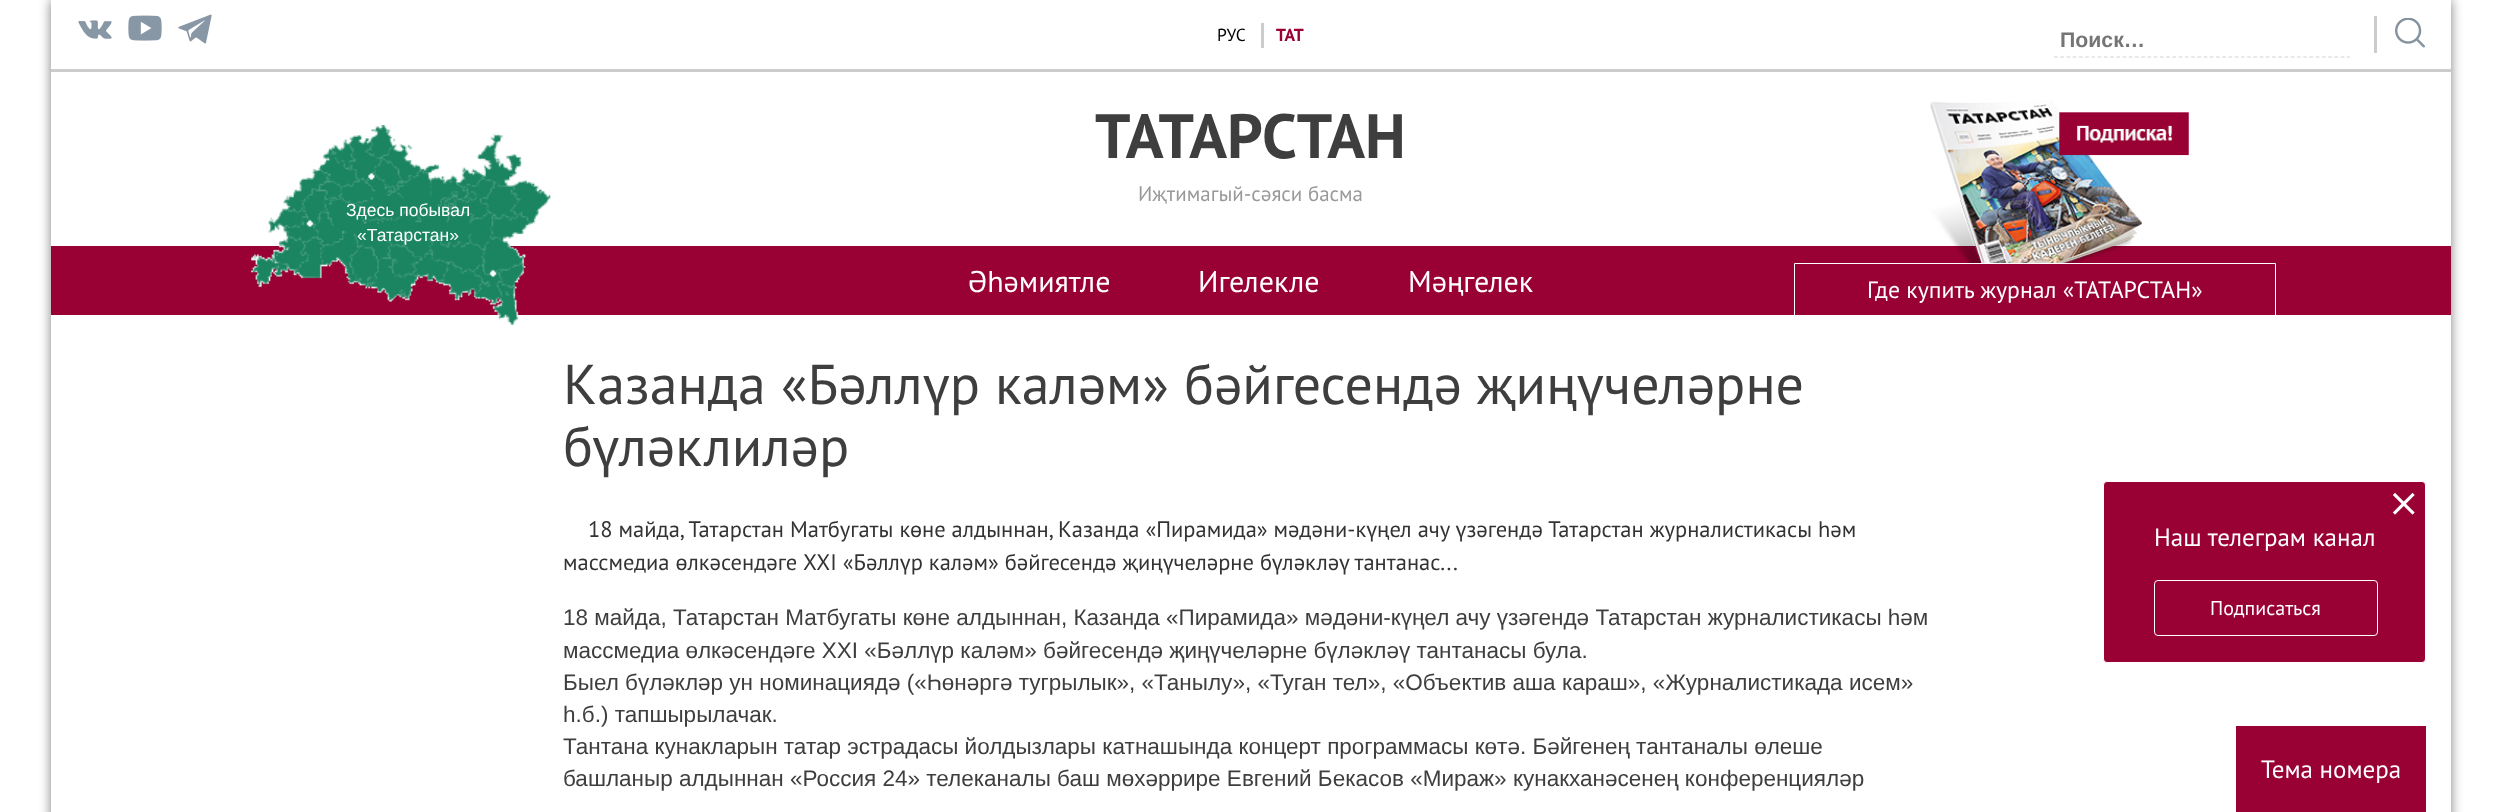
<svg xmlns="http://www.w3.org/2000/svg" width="2501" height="812">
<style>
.a{font:17.5px PT Sans;fill:#000}
.b{font:bold 17.5px PT Sans;fill:#903}
.c{font:bold 21.25px Liberation Sans;fill:#757575}
.d{font:bold 62.5px PT Sans;fill:#3e3e3e}
.e{font:21px PT Sans;fill:#999}
.f{font:17.5px Liberation Sans;fill:#fff}
.g{font:30px PT Sans;fill:#fff}
.h{font:23.75px PT Sans;fill:#fff}
.i{font:56px PT Sans;fill:#3e3e3e}
.j{font:22.5px PT Sans;fill:#333}
.k{font:22.5px Liberation Sans;fill:#3e3e3e}
.l{font:25px PT Sans;fill:#fff}
.m{font:20px PT Sans;fill:#fff}
</style>
<defs>
<clipPath id="clip1"><path d="M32 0h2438v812h-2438zm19 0h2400v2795h-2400z" clip-rule="evenodd"/></clipPath>
</defs>
<rect width="100%" height="100%" fill="#fff"/>
<g clip-path="url(#clip1)">
<path fill="#00000080" filter="blur(6px)" d="M51 0h2400v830H51z"/>
</g>
<path fill="#ccc" d="M51 69h2400v3H51z"/>
<image href="1.png" x="78" y="20" width="34" height="19"/>
<image href="2.png" x="128" y="15" width="34" height="26"/>
<image href="3.png" x="178" y="14" width="34" height="30"/>
<path fill="#ccc" d="M1261 23h3v25H1261z"/>
<path fill="none" stroke="#d4d4d6" stroke-width="1.2" stroke-dasharray="3.75 2.48" d="M2054 57h296"/>
<path fill="#ccc" d="M2374 16h3v37H2374z"/>
<image href="4.png" x="2395" y="18" width="30" height="30"/>
<path fill="#903" d="M51 246h2400v69H51z"/>
<image href="5.png" x="251" y="125" width="300" height="200"/>
<image href="6.png" x="1930" y="100" width="259" height="163"/>
<path fill="none" stroke="#fff" d="M1794.5 263.5h481v52H1794.5z"/>
<rect fill="#903" stroke="#fff" x="2103.5" y="481.5" width="322" height="181" rx="3.5"/>
<image href="7.png" x="2392" y="492" width="23" height="23"/>
<rect fill="none" stroke="#fff" x="2154.5" y="580.5" width="223" height="55" rx="3.5"/>
<path fill="#903" d="M2236 726h190v86H2236z"/>
<text class="a" x="1217" y="41">РУС</text>
<text class="b" x="1276" y="41">ТАТ</text>
<text class="c" x="2060" y="47">Поиск…</text>
<text class="d" x="1095" y="158">ТАТАРСТАН</text>
<text class="e" x="1138" y="201">Иҗтимагый-сәяси басма</text>
<text class="f" x="346" y="216">Здесь побывал</text>
<text class="f" x="357" y="241">«Татарстан»</text>
<text class="g" x="968" y="292">Әһәмиятле</text>
<text class="g" x="1198" y="292">Игелекле</text>
<text class="g" x="1408" y="292">Мәңгелек</text>
<text class="h" x="1867" y="298">Где купить журнал «ТАТАРСТАН»</text>
<text class="i" x="563" y="404">Казанда «Бәллүр каләм» бәйгесендә җиңүчеләрне</text>
<text class="i" x="563" y="466">бүләклиләр</text>
<text class="j" x="588" y="537">18 майда, Татарстан Матбугаты көне алдыннан, Казанда «Пирамида» мәдәни-күңел ачу үзәгендә Татарстан журналистикасы һәм</text>
<text class="j" x="563" y="570">массмедиа өлкәсендәге XXI «Бәллүр каләм» бәйгесендә җиңүчеләрне бүләкләү тантанас...</text>
<text class="k" x="563" y="625">18 майда, Татарстан Матбугаты көне алдыннан, Казанда «Пирамида» мәдәни-күңел ачу үзәгендә Татарстан журналистикасы һәм</text>
<text class="k" x="563" y="658">массмедиа өлкәсендәге XXI «Бәллүр каләм» бәйгесендә җиңүчеләрне бүләкләү тантанасы була.</text>
<text class="k" x="563" y="690">Быел бүләкләр ун номинациядә («Һөнәргә тугрылык», «Танылу», «Туган тел», «Объектив аша караш», «Журналистикада исем»</text>
<text class="k" x="563" y="722">һ.б.) тапшырылачак.</text>
<text class="k" x="563" y="754">Тантана кунакларын татар эстрадасы йолдызлары катнашында концерт программасы көтә. Бәйгенең тантаналы өлеше</text>
<text class="k" x="563" y="786">башланыр алдыннан «Россия 24» телеканалы баш мөхәррире Евгений Бекасов «Мираж» кунакханәсенең конференцияләр</text>
<text class="l" x="2154" y="546">Наш телеграм канал</text>
<text class="m" x="2210" y="615">Подписаться</text>
<text class="l" x="2261" y="778">Тема номера</text>
</svg>
